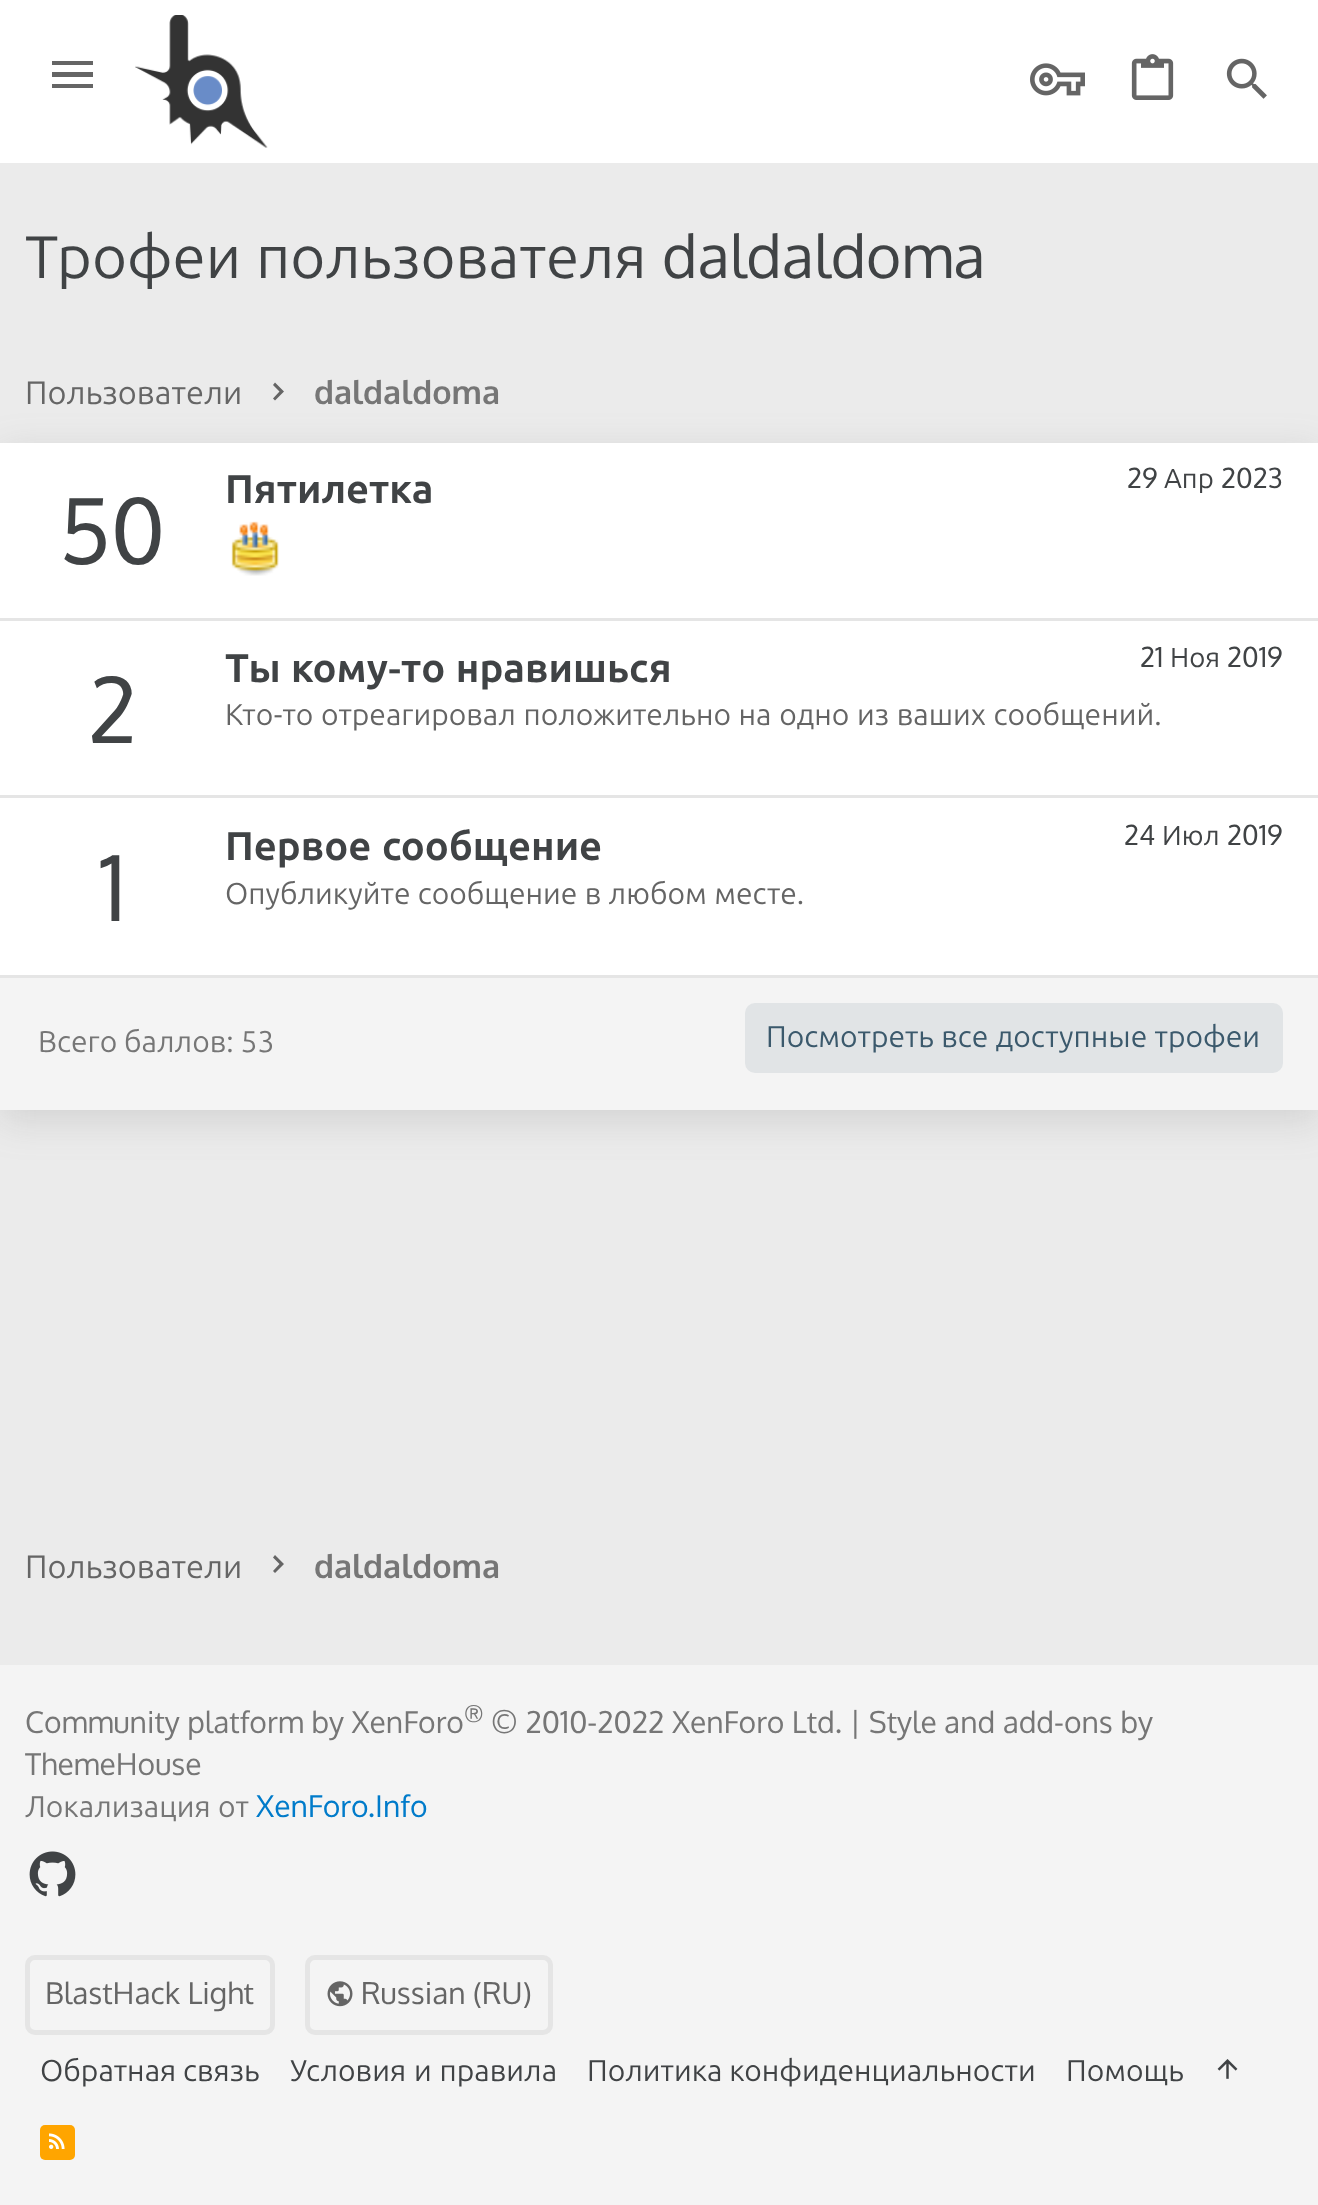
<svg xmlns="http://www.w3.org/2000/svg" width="1318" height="2205">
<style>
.a{font:60px Ubuntu;fill:#404345}
.b{font:60px Oxygen;fill:#404345}
.c{font:32.5px Ubuntu;fill:#656565}
.d{font:bold 32.5px Oxygen;fill:#767676}
.e{font:bold 40px Ubuntu;fill:#404345}
.f{font:27.5px Oxygen;fill:#404345}
.g{font:27.5px Ubuntu;fill:#404345}
.h{font:90px Oxygen;fill:#404345}
.i{font:bold 40px Oxygen;fill:#404345}
.j{font:30px Ubuntu;fill:#656565}
.k{font:30px Ubuntu;fill:#767676}
.l{font:30px Ubuntu;fill:#3b596c}
.m{font:30px Oxygen;fill:#767676}
.n{font:22px Oxygen;fill:#767676}
.o{font:30px Oxygen;fill:#007bca}
.p{font:30px Oxygen;fill:#656565}
.q{font:30px Ubuntu;fill:#404345}
</style>
<rect width="100%" height="100%" fill="#ebebeb"/>
<path fill="#fff" d="M0 0h1318v163H0z"/>
<path fill="#656565" d="M52 61h41v4h-41zm0 11h41v5h-41zm0 12h41v4h-41z"/>
<image href="1.png" x="135" y="15" width="133" height="133"/>
<image href="2.png" x="1030" y="63" width="55" height="33"/>
<image href="3.png" x="1131" y="54" width="43" height="46"/>
<image href="4.png" x="1226" y="58" width="41" height="41"/>
<path fill="#656565" d="M273 398.5l6.5-7l-6.5-6.5l2-2.5l9 9l-9 9z"/>
<path fill="#6e6e6e33" filter="blur(19px)" d="M0 453h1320v667H0z"/>
<path fill="#fff" d="M0 443h1318v532H0z"/>
<image href="5.png" x="231" y="521" width="48" height="55"/>
<path fill="#e5e5e5" d="M0 618h1318v3H0z"/>
<path fill="#e5e5e5" d="M0 795h1318v3H0z"/>
<path fill="#f4f4f4" d="M0 978h1318v132H0z"/>
<path fill="#e5e5e5" d="M0 975h1318v3H0z"/>
<rect fill="#e1e4e6" x="745" y="1003" width="538" height="70" rx="10"/>
<path fill="#656565" d="M273 1571l6.5-7l-6.5-6.5l2-2.5l9 9l-9 9z"/>
<path fill="#f4f4f4" d="M0 1665h1318v540H0z"/>
<image href="6.png" x="29" y="1851" width="47" height="46"/>
<rect fill="none" stroke="#e5e5e5" stroke-width="5" x="27.5" y="1957.5" width="245" height="75" rx="7.5"/>
<rect fill="none" stroke="#e5e5e5" stroke-width="5" x="307.5" y="1957.5" width="243" height="75" rx="7.5"/>
<image href="7.png" x="327" y="1981" width="26" height="26"/>
<image href="8.png" x="1217" y="2059" width="21" height="20"/>
<rect fill="#ffa500" x="40" y="2125" width="35" height="35" rx="5"/>
<image href="9.png" x="49" y="2133" width="16" height="16"/>
<text class="a" x="25" y="278" word-spacing="1">Трофеи пользователя</text>
<text class="b" x="662" y="278">daldaldoma</text>
<text class="c" x="25" y="404">Пользователи</text>
<text class="d" x="314" y="404">daldaldoma</text>
<text class="e" x="225" y="503">Пятилетка</text>
<text class="f" x="1127" y="488">29</text>
<text class="g" x="1164" y="488">Апр</text>
<text class="f" x="1221" y="488">2023</text>
<text class="h" x="59" y="564">50</text>
<text class="h" x="88" y="743">2</text>
<text class="e" x="225" y="682" word-spacing="1">Ты кому</text>
<text class="i" x="388" y="682">-</text>
<text class="e" x="401" y="682" word-spacing="1">то нравишься</text>
<text class="f" x="1140" y="667">21</text>
<text class="g" x="1170" y="667">Ноя</text>
<text class="f" x="1227" y="667">2019</text>
<text class="j" x="225" y="725" word-spacing="0.75">Кто-то отреагировал положительно на одно из ваших сообщений.</text>
<text class="h" x="99" y="921">1</text>
<text class="e" x="225" y="860" word-spacing="1">Первое сообщение</text>
<text class="f" x="1124" y="845">24</text>
<text class="g" x="1162" y="845">Июл</text>
<text class="f" x="1227" y="845">2019</text>
<text class="j" x="225" y="904" word-spacing="0.5">Опубликуйте сообщение в любом месте.</text>
<text class="k" x="38" y="1052">Всего баллов: 53</text>
<text class="l" x="766" y="1047" word-spacing="0.5">Посмотреть все доступные трофеи</text>
<text class="c" x="25" y="1578">Пользователи</text>
<text class="d" x="314" y="1578">daldaldoma</text>
<text class="m" x="25" y="1733">Community platform by XenForo</text>
<text class="n" x="464" y="1722">®</text>
<text class="m" x="491" y="1733">© 2010-2022 XenForo Ltd. | Style and add-ons by</text>
<text class="m" x="25" y="1775">ThemeHouse</text>
<text class="k" x="25" y="1817" word-spacing="0.5">Локализация от</text>
<text class="o" x="256" y="1817">XenForo.Info</text>
<text class="p" x="45" y="2004">BlastHack Light</text>
<text class="p" x="361" y="2004">Russian (RU)</text>
<text class="q" x="40" y="2081">Обратная связь</text>
<text class="q" x="290" y="2081" word-spacing="1">Условия и правила</text>
<text class="q" x="587" y="2081">Политика конфиденциальности</text>
<text class="q" x="1066" y="2081">Помощь</text>
</svg>
